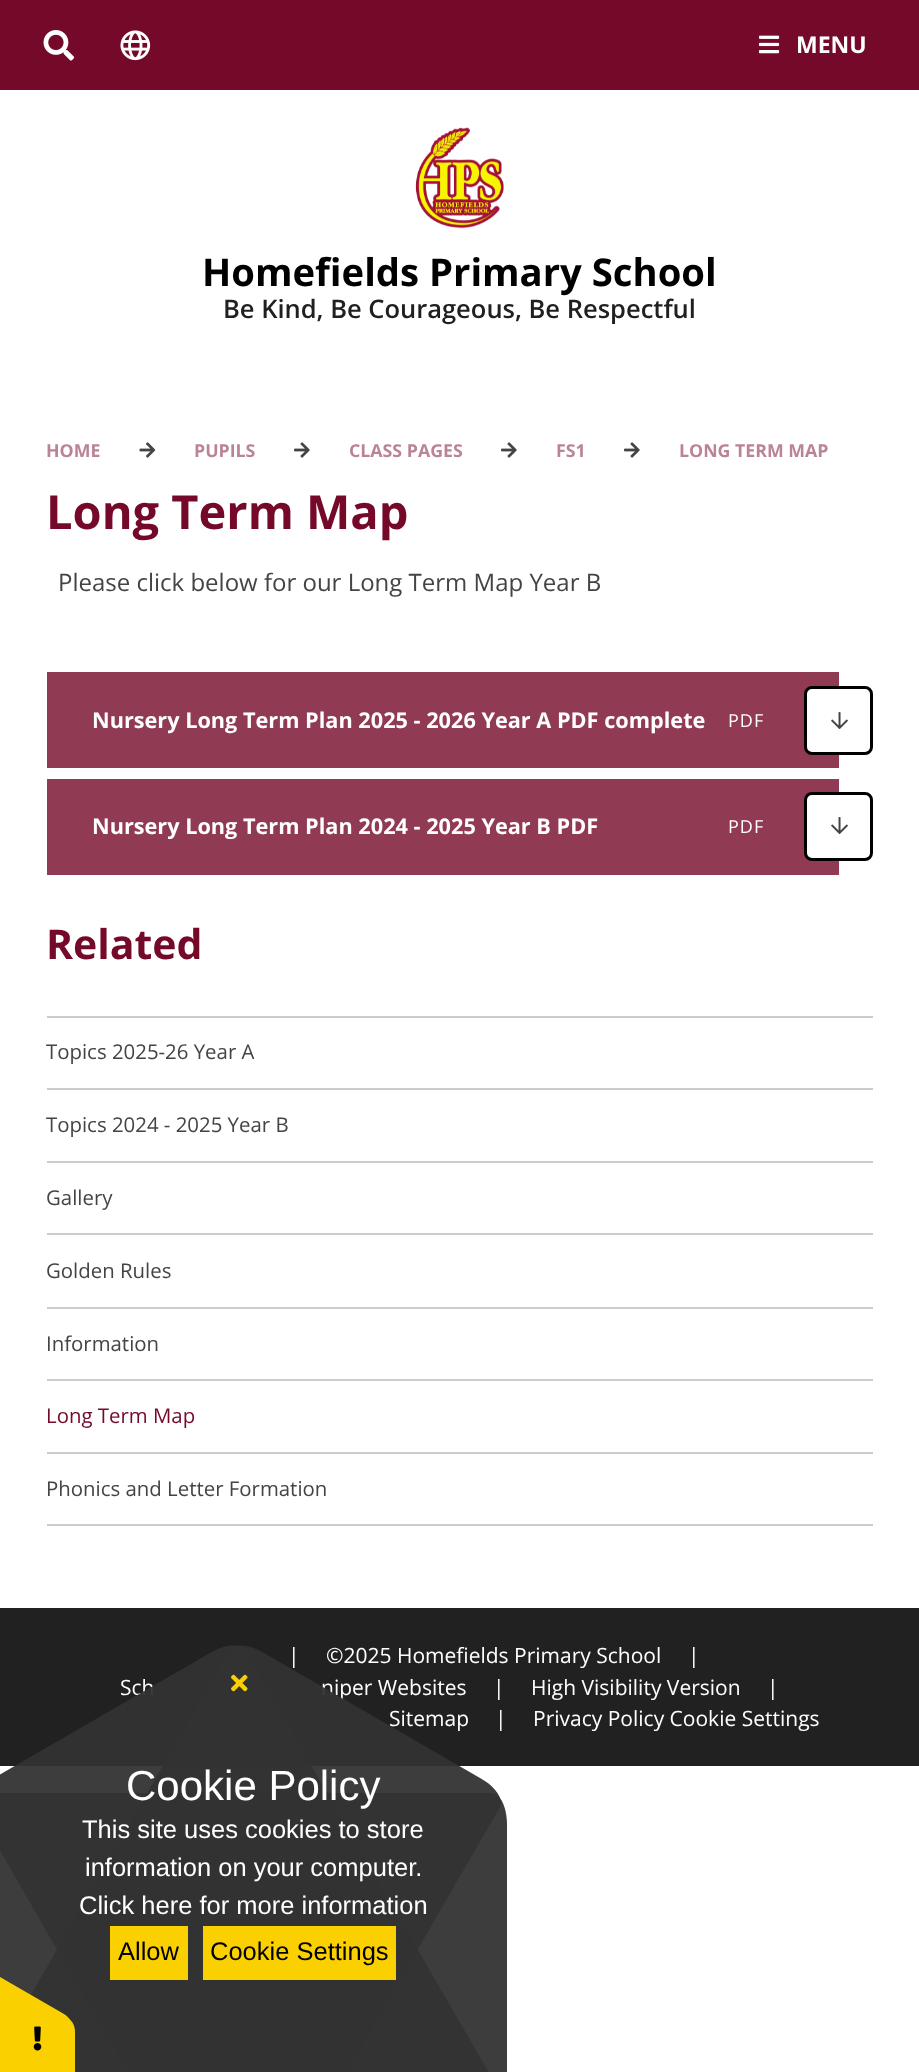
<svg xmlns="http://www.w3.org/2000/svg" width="919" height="2072">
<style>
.a{font:bold 23px Open Sans;fill:#fff}
.b{font:bold 38.25px Open Sans;fill:#000}
.c{font:600 25.5px Open Sans;fill:#202020}
.d{font:bold 17.75px Open Sans;fill:#ba8494}
.e{font:bold 47px Open Sans;fill:#750929}
.f{font:24px Open Sans;fill:#444}
.g{font:bold 21.7px Open Sans;fill:#fff}
.h{font:18px Open Sans;letter-spacing:1px;fill:#fff}
.i{font:bold 41px Open Sans;fill:#750929}
.j{font:20.4px Open Sans;fill:#444}
.k{font:20.4px Open Sans;fill:#750929}
.l{font:21px Open Sans;fill:#fff}
.m{font:42px Liberation Sans;fill:#fff}
.n{font:25.5px Liberation Sans;fill:#fff}
.o{font:25.5px Liberation Sans;fill:#000}
</style>
<defs>
<clipPath id="clip1"><path d="M92 813h673v26H92z"/></clipPath>
</defs>
<rect width="100%" height="100%" fill="#fff"/>
<path fill="#750929" d="M0 0h919v90H0z"/>
<image href="1.png" x="43" y="30" width="32" height="31"/>
<image href="2.png" x="120" y="30" width="31" height="31"/>
<image href="3.png" x="759" y="35" width="21" height="19"/>
<image href="4.png" x="415" y="127" width="89" height="102"/>
<image href="5.png" x="139" y="442" width="17" height="16"/>
<image href="6.png" x="294" y="442" width="16" height="16"/>
<image href="6.png" x="501" y="442" width="16" height="16"/>
<image href="6.png" x="624" y="442" width="16" height="16"/>
<path fill="#913a54" d="M47 672h792v96H47z"/>
<rect fill="#fff" stroke="#000" stroke-width="3" x="805.5" y="687.5" width="66" height="66" rx="6.5"/>
<image href="7.png" x="831" y="712" width="17" height="18"/>
<path fill="#913a54" d="M47 779h792v96H47z"/>
<rect fill="#fff" stroke="#000" stroke-width="3" x="805.5" y="793.5" width="66" height="66" rx="6.5"/>
<image href="7.png" x="831" y="817" width="17" height="18"/>
<path fill="#ccc" d="M47 1016h826v2H47z"/>
<path fill="#ccc" d="M47 1088h826v2H47z"/>
<path fill="#ccc" d="M47 1161h826v2H47z"/>
<path fill="#ccc" d="M47 1233h826v2H47z"/>
<path fill="#ccc" d="M47 1307h826v2H47z"/>
<path fill="#ccc" d="M47 1379h826v2H47z"/>
<path fill="#ccc" d="M47 1452h826v2H47z"/>
<path fill="#ccc" d="M47 1524h826v2H47z"/>
<path fill="#212121" d="M0 1608h919v158H0z"/>
<path fill="#3d3d3d" d="M507 1825v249c0 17-7 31-15 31h-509c-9 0-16-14-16-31v-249c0-18 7-32 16-32h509c8 0 15 14 15 32z"/>
<text class="a" x="796" y="53">MENU</text>
<text class="b" x="202" y="286">Homefields Primary School</text>
<text class="c" x="223" y="318">Be Kind, Be Courageous, Be Respectful</text>
<text class="d" x="46" y="457">HOME</text>
<text class="d" x="194" y="457">PUPILS</text>
<text class="d" x="349" y="457">CLASS PAGES</text>
<text class="d" x="556" y="457">FS1</text>
<text class="d" x="679" y="457">LONG TERM MAP</text>
<text class="e" x="46" y="529">Long Term Map</text>
<text class="f" x="58" y="591">Please click below for our Long Term Map Year B</text>
<text class="g" x="92" y="728">Nursery Long Term Plan 2025 - 2026 Year A PDF complete</text>
<text class="h" x="728" y="727">PDF</text>
<g clip-path="url(#clip1)">
<text class="g" x="92" y="834">Nursery Long Term Plan 2024 - 2025 Year B PDF</text>
</g>
<text class="h" x="728" y="833">PDF</text>
<text class="i" x="46" y="959">Related</text>
<text class="j" x="46" y="1059">Topics 2025-26 Year A</text>
<text class="j" x="46" y="1132">Topics 2024 - 2025 Year B</text>
<text class="j" x="46" y="1205">Gallery</text>
<text class="j" x="46" y="1278">Golden Rules</text>
<text class="j" x="46" y="1351">Information</text>
<text class="k" x="46" y="1423">Long Term Map</text>
<text class="j" x="46" y="1496">Phonics and Letter Formation</text>
<text class="l" x="288" y="1663">|</text>
<text class="l" x="326" y="1663">©2025 Homefields Primary School</text>
<text class="l" x="688" y="1663">|</text>
<text class="l" x="120" y="1695">Sch</text>
<text class="l" x="321" y="1695">niper Websites</text>
<text class="l" x="493" y="1695">|</text>
<text class="l" x="531" y="1695">High Visibility Version</text>
<text class="l" x="767" y="1695">|</text>
<text class="l" x="389" y="1726">Sitemap</text>
<text class="l" x="495" y="1726">|</text>
<text class="l" x="533" y="1726">Privacy Policy Cookie Settings</text>
<path fill="#333333f2" d="M480 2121l-216 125c-15 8-30 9-35 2l-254-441c-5-8 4-21 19-29l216-125c15-9 31-10 35-2l255 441c4 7-5 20-20 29z"/>
<path fill="#333333f2" d="M264 1653l216 125c15 8 24 21 20 29l-255 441c-4 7-20 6-35-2l-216-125c-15-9-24-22-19-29l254-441c5-8 20-7 35 2z"/>
<image href="8.png" x="231" y="1674" width="17" height="18"/>
<text class="m" x="126" y="1800">Cookie Policy</text>
<text class="n" x="82" y="1838">This site uses cookies to store</text>
<text class="n" x="85" y="1876">information on your computer.</text>
<text class="n" x="79" y="1914">Click here for more information</text>
<path fill="#fad000" d="M110 1926h78v54H110z"/>
<text class="o" x="118" y="1960">Allow</text>
<path fill="#fad000" d="M203 1926h193v54H203z"/>
<text class="o" x="210" y="1960">Cookie Settings</text>
<path fill="#fad000" d="M75 2032v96c0 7-3 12-6 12h-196c-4 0-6-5-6-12v-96c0-6 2-12 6-12h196c3 0 6 6 6 12z"/>
<path fill="#fad000" d="M-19 1966l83 48c6 4 9 9 8 12l-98 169c-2 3-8 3-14-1l-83-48c-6-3-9-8-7-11l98-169c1-3 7-3 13 0z"/>
<image href="9.png" x="33" y="2026" width="9" height="25"/>
</svg>
